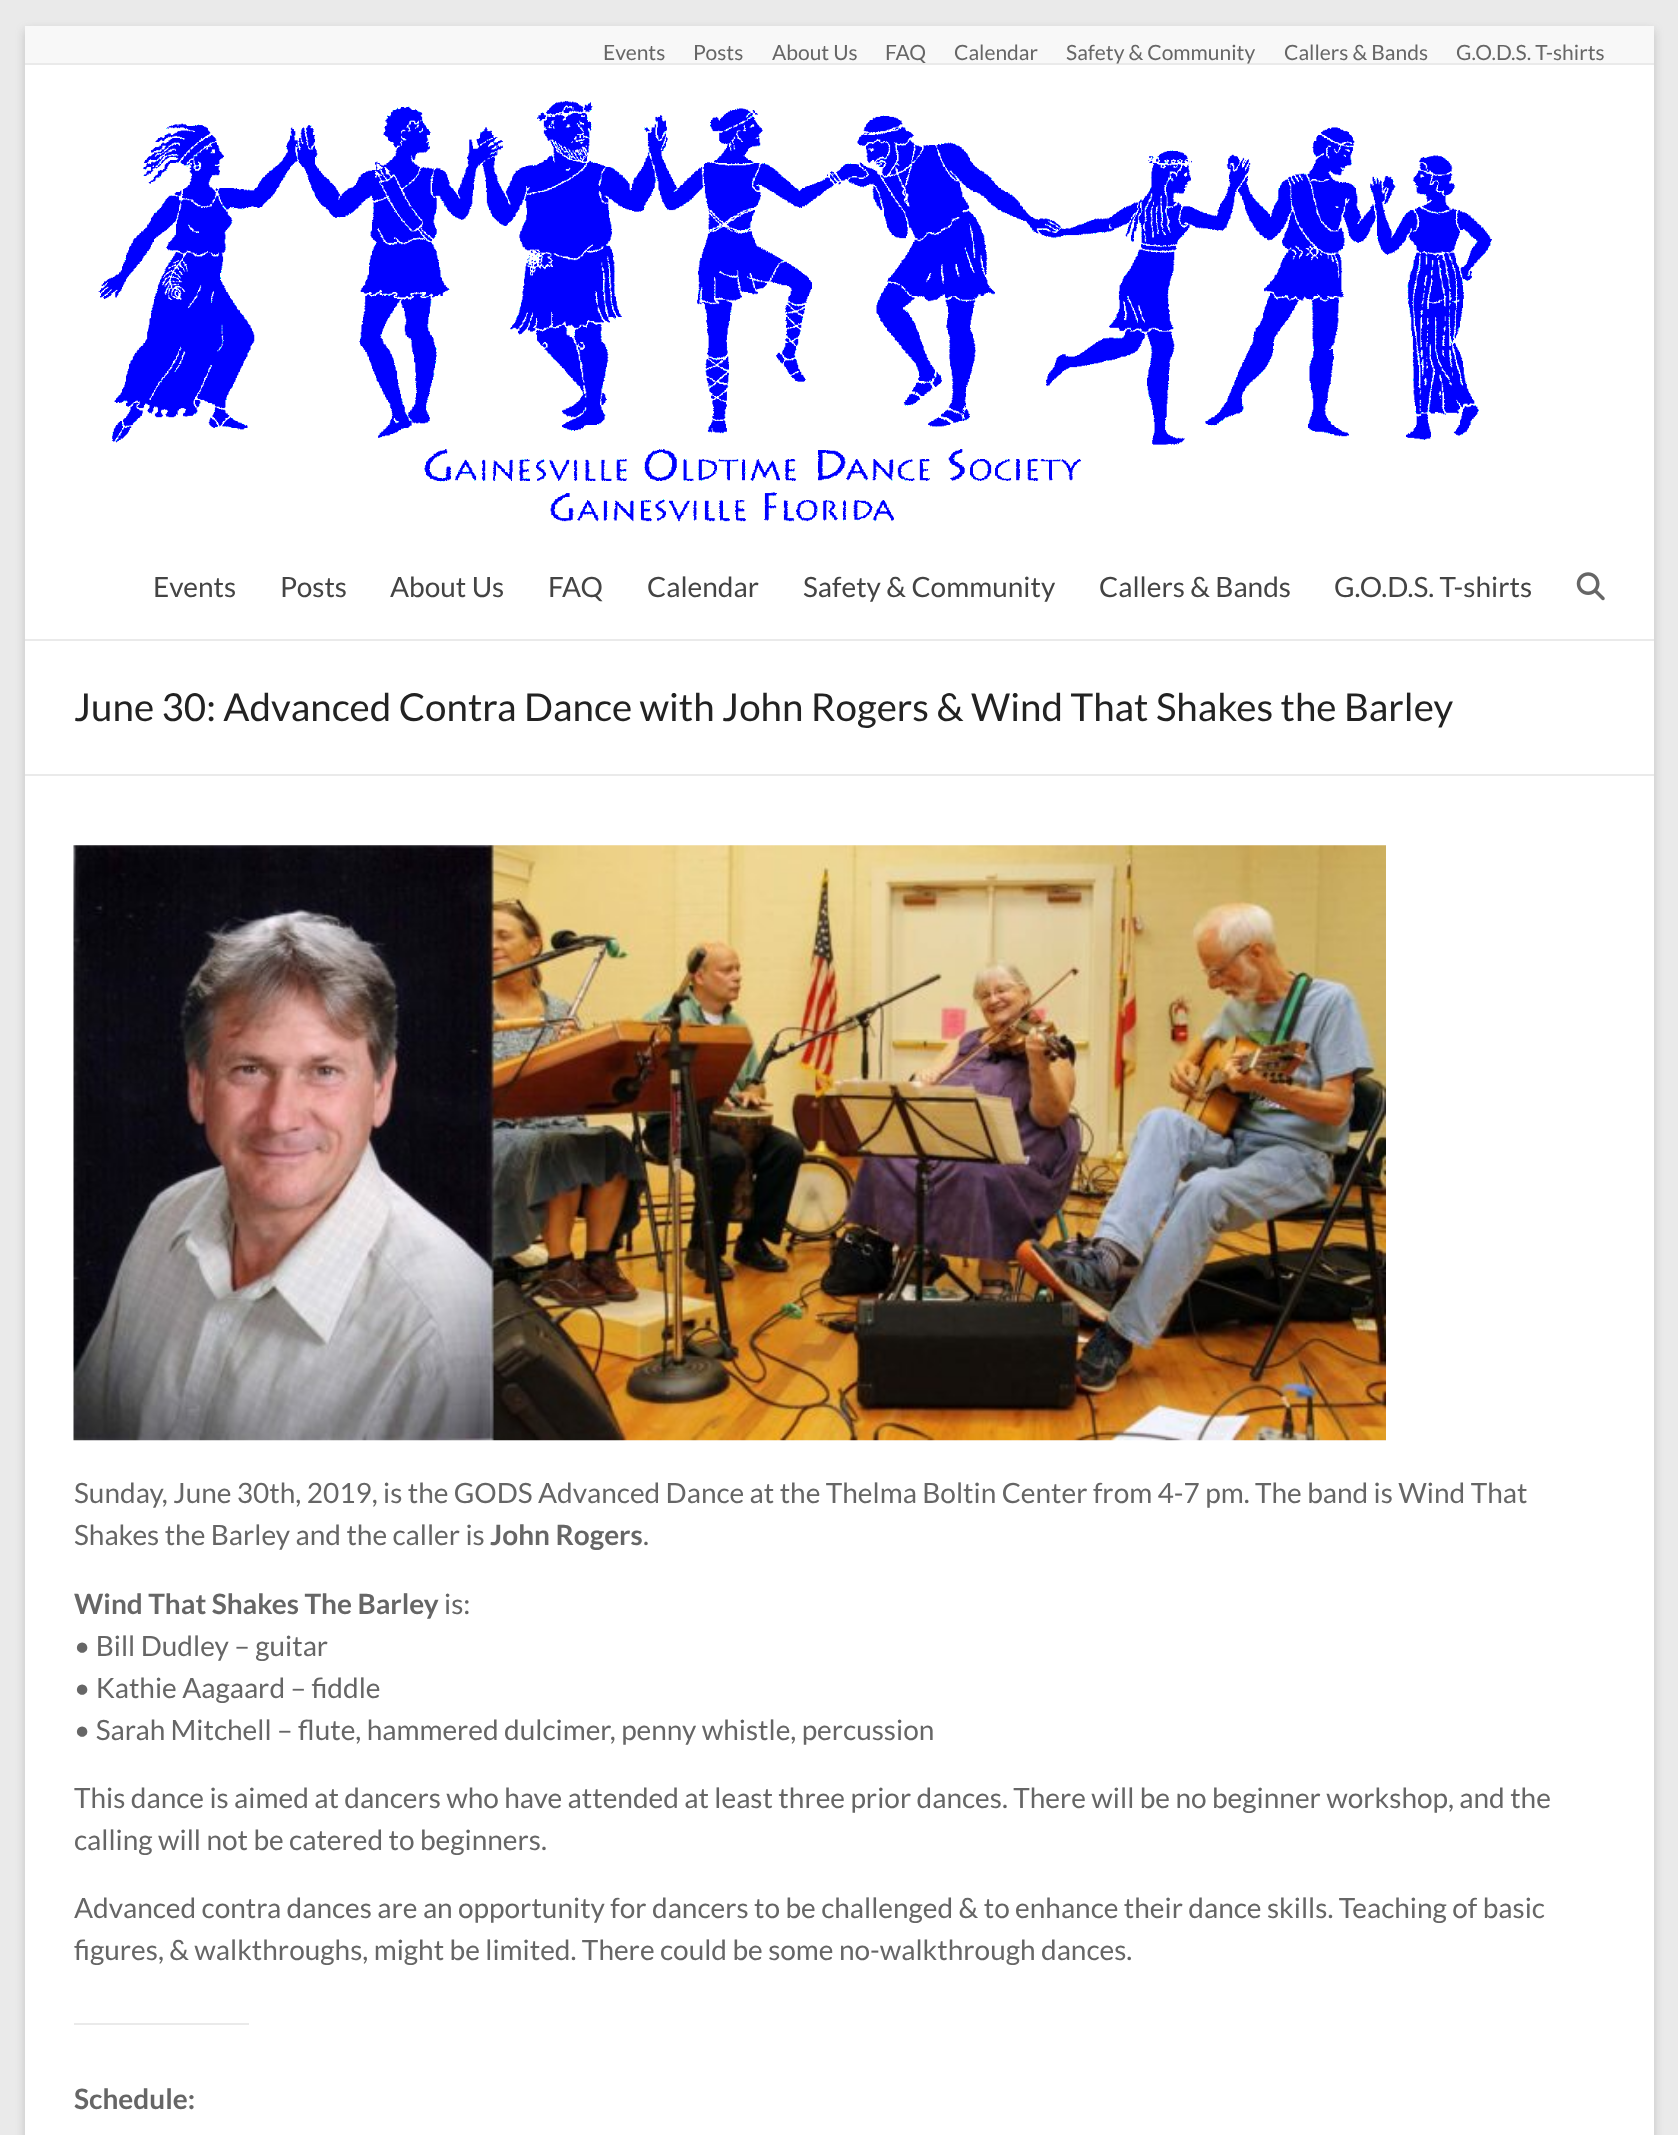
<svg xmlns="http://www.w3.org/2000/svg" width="1678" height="2135">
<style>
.a{font:21px Lato;fill:#666}
.b{font:28px Lato;fill:#444}
.c{font:38.5px Lato;fill:#222}
.d{font:28px Lato;fill:#666}
.e{font:bold 28px Lato;fill:#666}
</style>
<rect width="100%" height="100%" fill="#eaeaea"/>
<path fill="#6464644d" filter="blur(5px)" d="M25 30h1629v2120H25z"/>
<path fill="#fff" d="M25 65h1629v2070H25z"/>
<path fill="#f8f8f8" d="M25 26h1629v37H25z"/>
<path fill="#eaeaea" d="M25 63h1629v2H25z"/>
<path fill="#eaeaea" d="M25 639h1629v2H25z"/>
<image href="1.png" x="98" y="101" width="1394" height="421"/>
<image href="2.png" x="1576" y="572" width="29" height="29"/>
<path fill="#eaeaea" d="M25 774h1629v2H25z"/>
<image href="3.png" x="73" y="845" width="1313" height="596"/>
<path fill="#eaeaea" d="M74 2023h175v2H74z"/>
<text class="a" x="603" y="60">Events</text>
<text class="a" x="693" y="60">Posts</text>
<text class="a" x="772" y="60">About Us</text>
<text class="a" x="885" y="60">FAQ</text>
<text class="a" x="954" y="60">Calendar</text>
<text class="a" x="1066" y="60">Safety &amp; Community</text>
<text class="a" x="1284" y="60">Callers &amp; Bands</text>
<text class="a" x="1456" y="60">G.O.D.S. T-shirts</text>
<text class="b" x="153" y="597">Events</text>
<text class="b" x="280" y="597">Posts</text>
<text class="b" x="390" y="597">About Us</text>
<text class="b" x="548" y="597">FAQ</text>
<text class="b" x="647" y="597">Calendar</text>
<text class="b" x="803" y="597">Safety &amp; Community</text>
<text class="b" x="1099" y="597">Callers &amp; Bands</text>
<text class="b" x="1334" y="597">G.O.D.S. T-shirts</text>
<text class="c" x="74" y="721">June 30: Advanced Contra Dance with John Rogers &amp; Wind That Shakes the Barley</text>
<text class="d" x="74" y="1503">Sunday, June 30th, 2019, is the GODS Advanced Dance at the Thelma Boltin Center from 4-7 pm. The band is Wind That</text>
<text class="d" x="74" y="1545">Shakes the Barley and the caller is</text>
<text class="e" x="490" y="1545">John Rogers</text>
<text class="d" x="643" y="1545">.</text>
<text class="e" x="74" y="1614">Wind That Shakes The Barley</text>
<text class="d" x="444" y="1614">is:</text>
<text class="d" x="74" y="1656">• Bill Dudley – guitar</text>
<text class="d" x="74" y="1698">• Kathie Aagaard – fiddle</text>
<text class="d" x="74" y="1740">• Sarah Mitchell – flute, hammered dulcimer, penny whistle, percussion</text>
<text class="d" x="74" y="1808">This dance is aimed at dancers who have attended at least three prior dances. There will be no beginner workshop, and the</text>
<text class="d" x="74" y="1850">calling will not be catered to beginners.</text>
<text class="d" x="74" y="1918">Advanced contra dances are an opportunity for dancers to be challenged &amp; to enhance their dance skills. Teaching of basic</text>
<text class="d" x="74" y="1960">figures, &amp; walkthroughs, might be limited. There could be some no-walkthrough dances.</text>
<text class="e" x="74" y="2109">Schedule:</text>
</svg>
